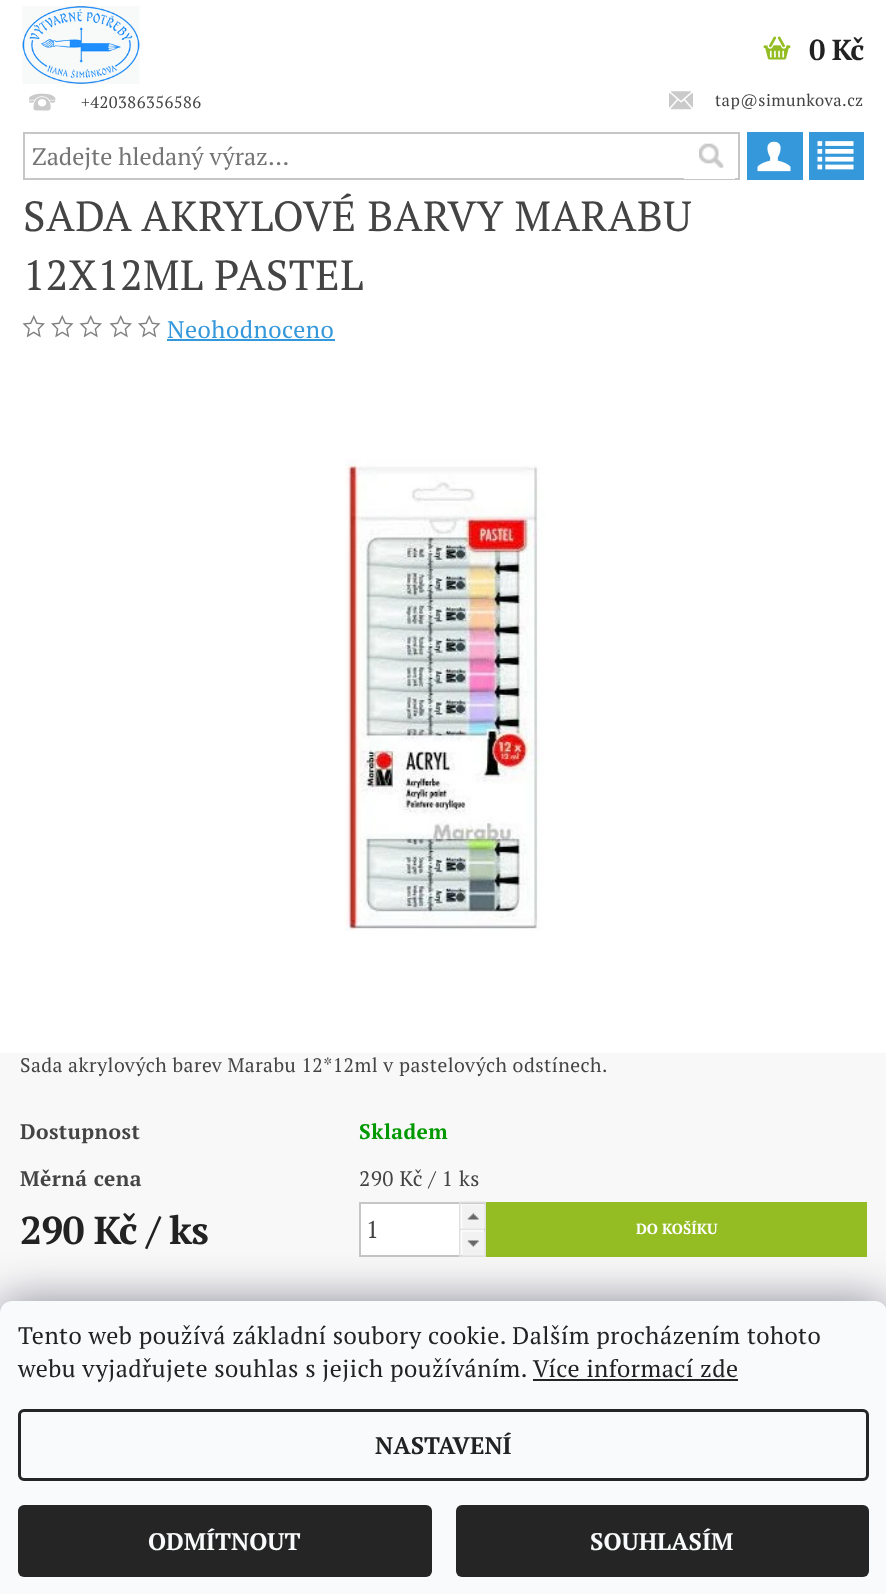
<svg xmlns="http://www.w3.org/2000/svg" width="886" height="1594">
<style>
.a{font:bold 29px PT Serif;letter-spacing:-0.75px;fill:#222}
.b{font:16.5px PT Serif;letter-spacing:0.48px;fill:#444}
.c{font:24.1px PT Serif;fill:#757575}
.d{font:42px PT Serif;letter-spacing:0.48px;fill:#444}
.e{font:24px PT Serif;letter-spacing:0.48px;fill:#3498db}
.f{font:19.5px PT Serif;letter-spacing:0.48px;fill:#444}
.g{font:bold 21px PT Serif;letter-spacing:0.48px;fill:#444}
.h{font:bold 21px PT Serif;letter-spacing:0.48px;fill:#009901}
.i{font:21px PT Serif;letter-spacing:0.48px;fill:#444}
.j{font:bold 39px PT Serif;letter-spacing:-0.75px;fill:#222}
.k{font:24.1px PT Serif;fill:#444}
.l{font:bold 14.75px PT Serif;fill:#fff}
.m{font:24px PT Serif;letter-spacing:0.48px;fill:#222}
.n{font:bold 24px PT Serif;fill:#222}
.o{font:bold 24px PT Serif;fill:#f8fafb}
</style>
<rect width="100%" height="100%" fill="#fff"/>
<image href="1.png" x="22" y="6" width="118" height="78"/>
<image href="2.png" x="763" y="36" width="28" height="24"/>
<path fill="#3498db" d="M747 132h56v48H747z"/>
<image href="3.png" x="757" y="141" width="34" height="31"/>
<image href="4.png" x="29" y="93" width="27" height="18"/>
<image href="5.png" x="669" y="91" width="24" height="19"/>
<path fill="none" stroke="#c6c6c6" stroke-width="2" d="M24 133h715v46H24z"/>
<path fill="#fff" d="M684 178h51v1H684z"/>
<image href="6.png" x="699" y="143" width="25" height="25"/>
<path fill="#3498db" d="M809 132h55v48H809z"/>
<image href="7.png" x="817" y="141" width="37" height="29"/>
<image href="8.png" x="22" y="315" width="23" height="23"/>
<image href="9.png" x="51" y="315" width="23" height="23"/>
<image href="8.png" x="79" y="315" width="23" height="23"/>
<image href="8.png" x="109" y="315" width="23" height="23"/>
<image href="9.png" x="138" y="315" width="23" height="23"/>
<path fill="#3498db" d="M167 339h168v2H167z"/>
<image href="10.png" x="343" y="459" width="202" height="472"/>
<path fill="#f8f8f8" d="M0 1053h886v260H0z"/>
<path fill="#fff" stroke="#c6c6c6" stroke-width="2" d="M360 1203h125v53H360z"/>
<image href="11.png" x="459" y="1201" width="27" height="28"/>
<image href="12.png" x="459" y="1228" width="27" height="29"/>
<path fill="#94bd23" d="M486 1202h381v55H486z"/>
<rect fill="#1b193980" filter="blur(22.5px)" y="1301" width="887" height="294" rx="12"/>
<path fill="#f8fafb" d="M12 1301h863c6.5 0 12 5.5 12 12v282h-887v-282c0-6.5 5.5-12 12-12z"/>
<rect fill="none" stroke="#252525" stroke-width="3" x="19.5" y="1410.5" width="848" height="69" rx="4.5"/>
<rect fill="#252525" x="18" y="1505" width="414" height="72" rx="6"/>
<rect fill="#252525" x="456" y="1505" width="413" height="72" rx="6"/>
<text class="a" x="809" y="60">0 Kč</text>
<text class="b" x="81" y="108">+420386356586</text>
<text class="b" x="715" y="106">tap@simunkova.cz</text>
<text class="c" x="32" y="165">Zadejte hledaný výraz...</text>
<text class="d" x="23" y="231">SADA AKRYLOVÉ BARVY MARABU</text>
<text class="d" x="23" y="290">12X12ML PASTEL</text>
<text class="e" x="167" y="338">Neohodnoceno</text>
<text class="f" x="20" y="1072">Sada akrylových barev Marabu 12*12ml v pastelových odstínech.</text>
<text class="g" x="20" y="1139">Dostupnost</text>
<text class="h" x="359" y="1139">Skladem</text>
<text class="g" x="20" y="1186">Měrná cena</text>
<text class="i" x="359" y="1186">290 Kč / 1 ks</text>
<text class="j" x="20" y="1244">290 Kč / ks</text>
<text class="k" x="366" y="1238">1</text>
<text class="l" x="636" y="1234">DO KOŠÍKU</text>
<text class="m" x="18" y="1344">Tento web používá základní soubory cookie. Dalším procházením tohoto</text>
<text class="m" x="18" y="1377">webu vyjadřujete souhlas s jejich používáním. Více informací zde</text>
<path fill="#252525" d="M533 1379h205v2H533z"/>
<text class="n" x="375" y="1454">NASTAVENÍ</text>
<text class="o" x="148" y="1550">ODMÍTNOUT</text>
<text class="o" x="590" y="1550">SOUHLASÍM</text>
</svg>
